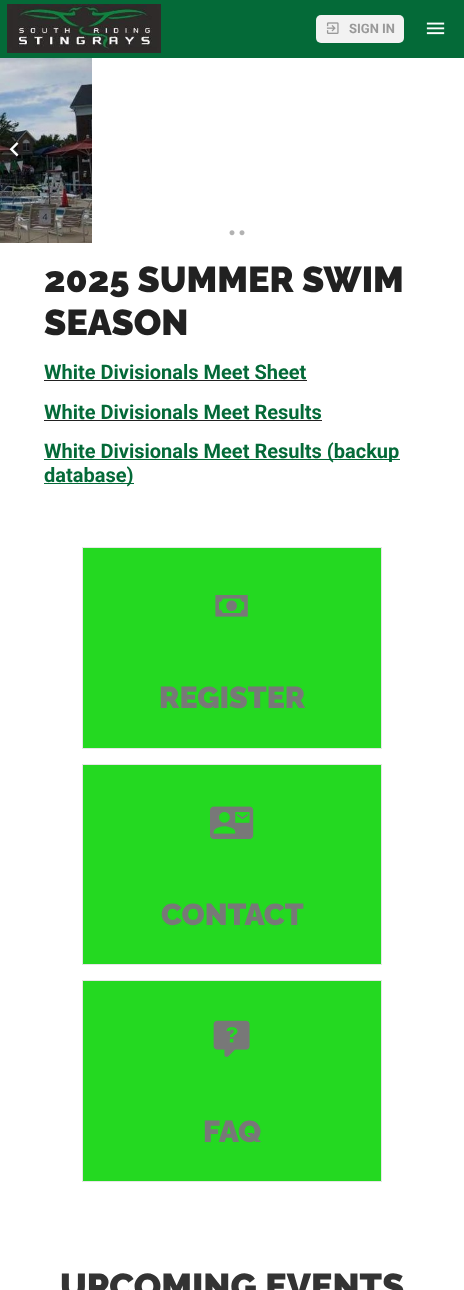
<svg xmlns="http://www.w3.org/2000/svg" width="464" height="1290">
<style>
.a{font:bold 13px Roboto;fill:#999}
.b{font:900 36px Raleway;fill:#212121}
.c{font:bold 20px Roboto;fill:#046a38}
.d{font:900 30.25px Raleway;fill:#787878}
.e{font:900 36px Raleway;fill:#333}
</style>
<rect width="100%" height="100%" fill="#fff"/>
<path fill="#046a38" d="M0 0h464v58H0z"/>
<image href="1.png" x="7" y="4" width="154" height="49"/>
<rect fill="#f2f2f2" x="316" y="15" width="88" height="28" rx="5"/>
<image href="2.png" x="326" y="22" width="13" height="12"/>
<image href="3.png" x="426" y="22" width="19" height="13"/>
<image href="4.png" x="0" y="58" width="92" height="185"/>
<image href="5.png" x="9" y="142" width="10" height="15"/>
<image href="6.png" x="229" y="230" width="6" height="6"/>
<image href="6.png" x="239" y="230" width="6" height="6"/>
<path fill="#212121" d="M44 380h263v1H44z"/>
<path fill="#212121" d="M44 420h278v1H44z"/>
<path fill="#046a38" d="M44 459h356v1H44z"/>
<path fill="#046a38" d="M44 483h90v1H44z"/>
<path fill="#24d921" stroke="#e7e7e7" d="M82.5 547.5h299v201H82.5z"/>
<image href="7.png" x="215" y="595" width="33" height="22"/>
<path fill="#24d921" stroke="#e7e7e7" d="M82.5 764.5h299v200H82.5z"/>
<image href="8.png" x="210" y="806" width="44" height="33"/>
<path fill="#24d921" stroke="#e7e7e7" d="M82.5 980.5h299v201H82.5z"/>
<image href="9.png" x="213" y="1020" width="37" height="37"/>
<text class="a" x="349" y="33">SIGN IN</text>
<text class="b" x="44" y="292">2025 SUMMER SWIM</text>
<text class="b" x="44" y="335">SEASON</text>
<text class="c" x="44" y="379">White Divisionals Meet Sheet</text>
<text class="c" x="44" y="419">White Divisionals Meet Results</text>
<text class="c" x="44" y="458">White Divisionals Meet Results (backup</text>
<text class="c" x="44" y="482">database)</text>
<text class="d" x="159" y="708">REGISTER</text>
<text class="d" x="161" y="925">CONTACT</text>
<text class="d" x="203" y="1142">FAQ</text>
<text class="e" x="60" y="1299">UPCOMING EVENTS</text>
</svg>
